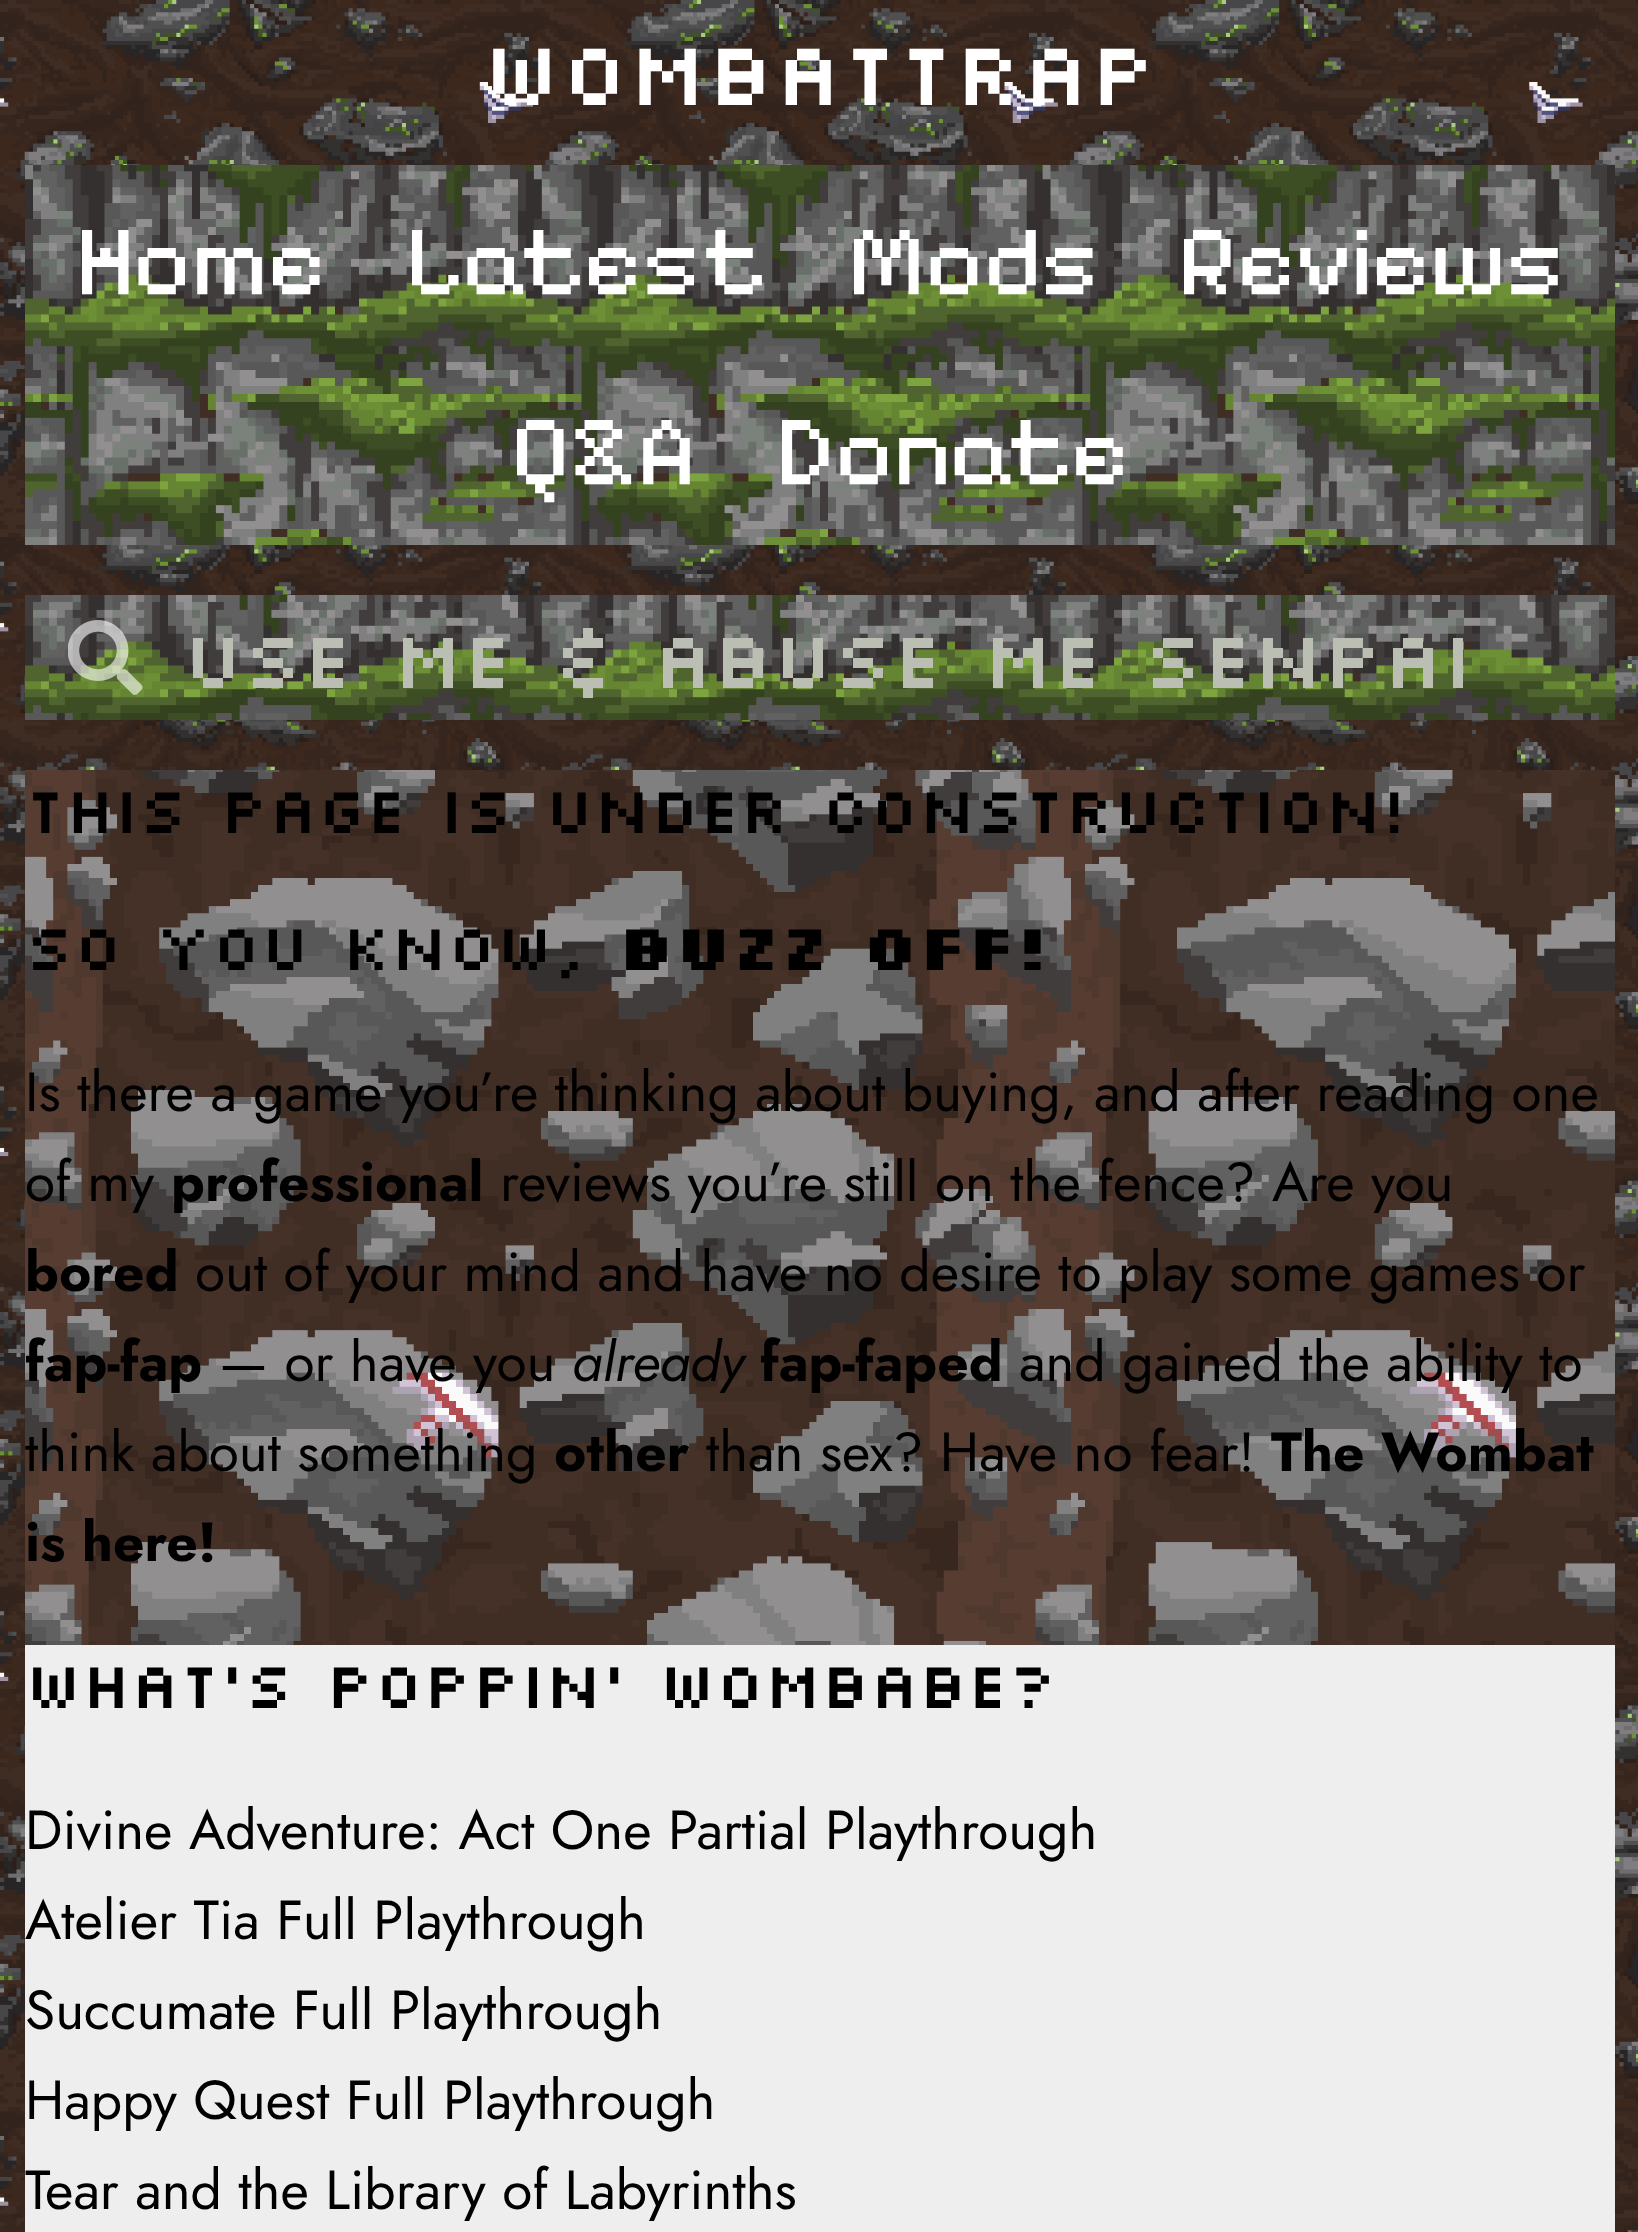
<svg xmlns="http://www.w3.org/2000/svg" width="1638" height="2232">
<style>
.a{font:90px Silkscreen;fill:#fff}
.b{font:100px Pixelify Sans;fill:#fff}
.c{font:80px Silkscreen;fill:#bbbfb3}
.d{font:65px Silkscreen;fill:#000}
.e{font:bold 65px Silkscreen;fill:#000}
.f{font:55px Jost;fill:#000}
.g{font:bold 55px Jost;fill:#000}
.h{font:italic 55px Jost;fill:#000}
</style>
<rect width="100%" height="100%" fill="#fff"/>
<image href="1.png" x="0" y="0" width="1638" height="2232"/>
<image href="2.png" x="25" y="165" width="1590" height="380"/>
<image href="3.png" x="25" y="595" width="1590" height="125"/>
<image href="4.png" x="68" y="620" width="75" height="75"/>
<image href="5.png" x="25" y="770" width="1590" height="875"/>
<path fill="#eee" d="M25 1645h1590v587H25z"/>
<text class="a" x="482" y="105">WombatTrap</text>
<text class="b" x="76" y="293">Home</text>
<text class="b" x="406" y="293">Latest</text>
<text class="b" x="848" y="293">Mods</text>
<text class="b" x="1178" y="293">Reviews</text>
<text class="b" x="511" y="483">Q&amp;A</text>
<text class="b" x="776" y="483">Donate</text>
<text class="c" x="183" y="688">USE ME &amp; ABUSE ME SENPAI</text>
<text class="d" x="25" y="833">This page is under construction!</text>
<text class="d" x="25" y="970">So you know,</text>
<text class="e" x="618" y="970">buzz off!</text>
<text class="f" x="25" y="1111">Is there a game you’re thinking about buying, and after reading one</text>
<text class="f" x="25" y="1201">of my</text>
<text class="g" x="171" y="1201">professional</text>
<text class="f" x="500" y="1201">reviews you’re still on the fence? Are you</text>
<text class="g" x="25" y="1291">bored</text>
<text class="f" x="195" y="1291">out of your mind and have no desire to play some games or</text>
<text class="g" x="25" y="1381">fap-fap</text>
<text class="f" x="219" y="1381">— or have you</text>
<text class="h" x="572" y="1381">already</text>
<text class="g" x="760" y="1381">fap-faped</text>
<text class="f" x="1019" y="1381">and gained the ability to</text>
<text class="f" x="25" y="1471">think about something</text>
<text class="g" x="554" y="1471">other</text>
<text class="f" x="706" y="1471">than sex? Have no fear!</text>
<text class="g" x="1271" y="1471">The Wombat</text>
<text class="g" x="25" y="1561">is here!</text>
<text class="d" x="25" y="1708">What’s poppin’ Wombabe?</text>
<text class="f" x="25" y="1849">Divine Adventure: Act One Partial Playthrough</text>
<text class="f" x="25" y="1939">Atelier Tia Full Playthrough</text>
<text class="f" x="25" y="2029">Succumate Full Playthrough</text>
<text class="f" x="25" y="2119">Happy Quest Full Playthrough</text>
<text class="f" x="25" y="2209">Tear and the Library of Labyrinths</text>
</svg>
